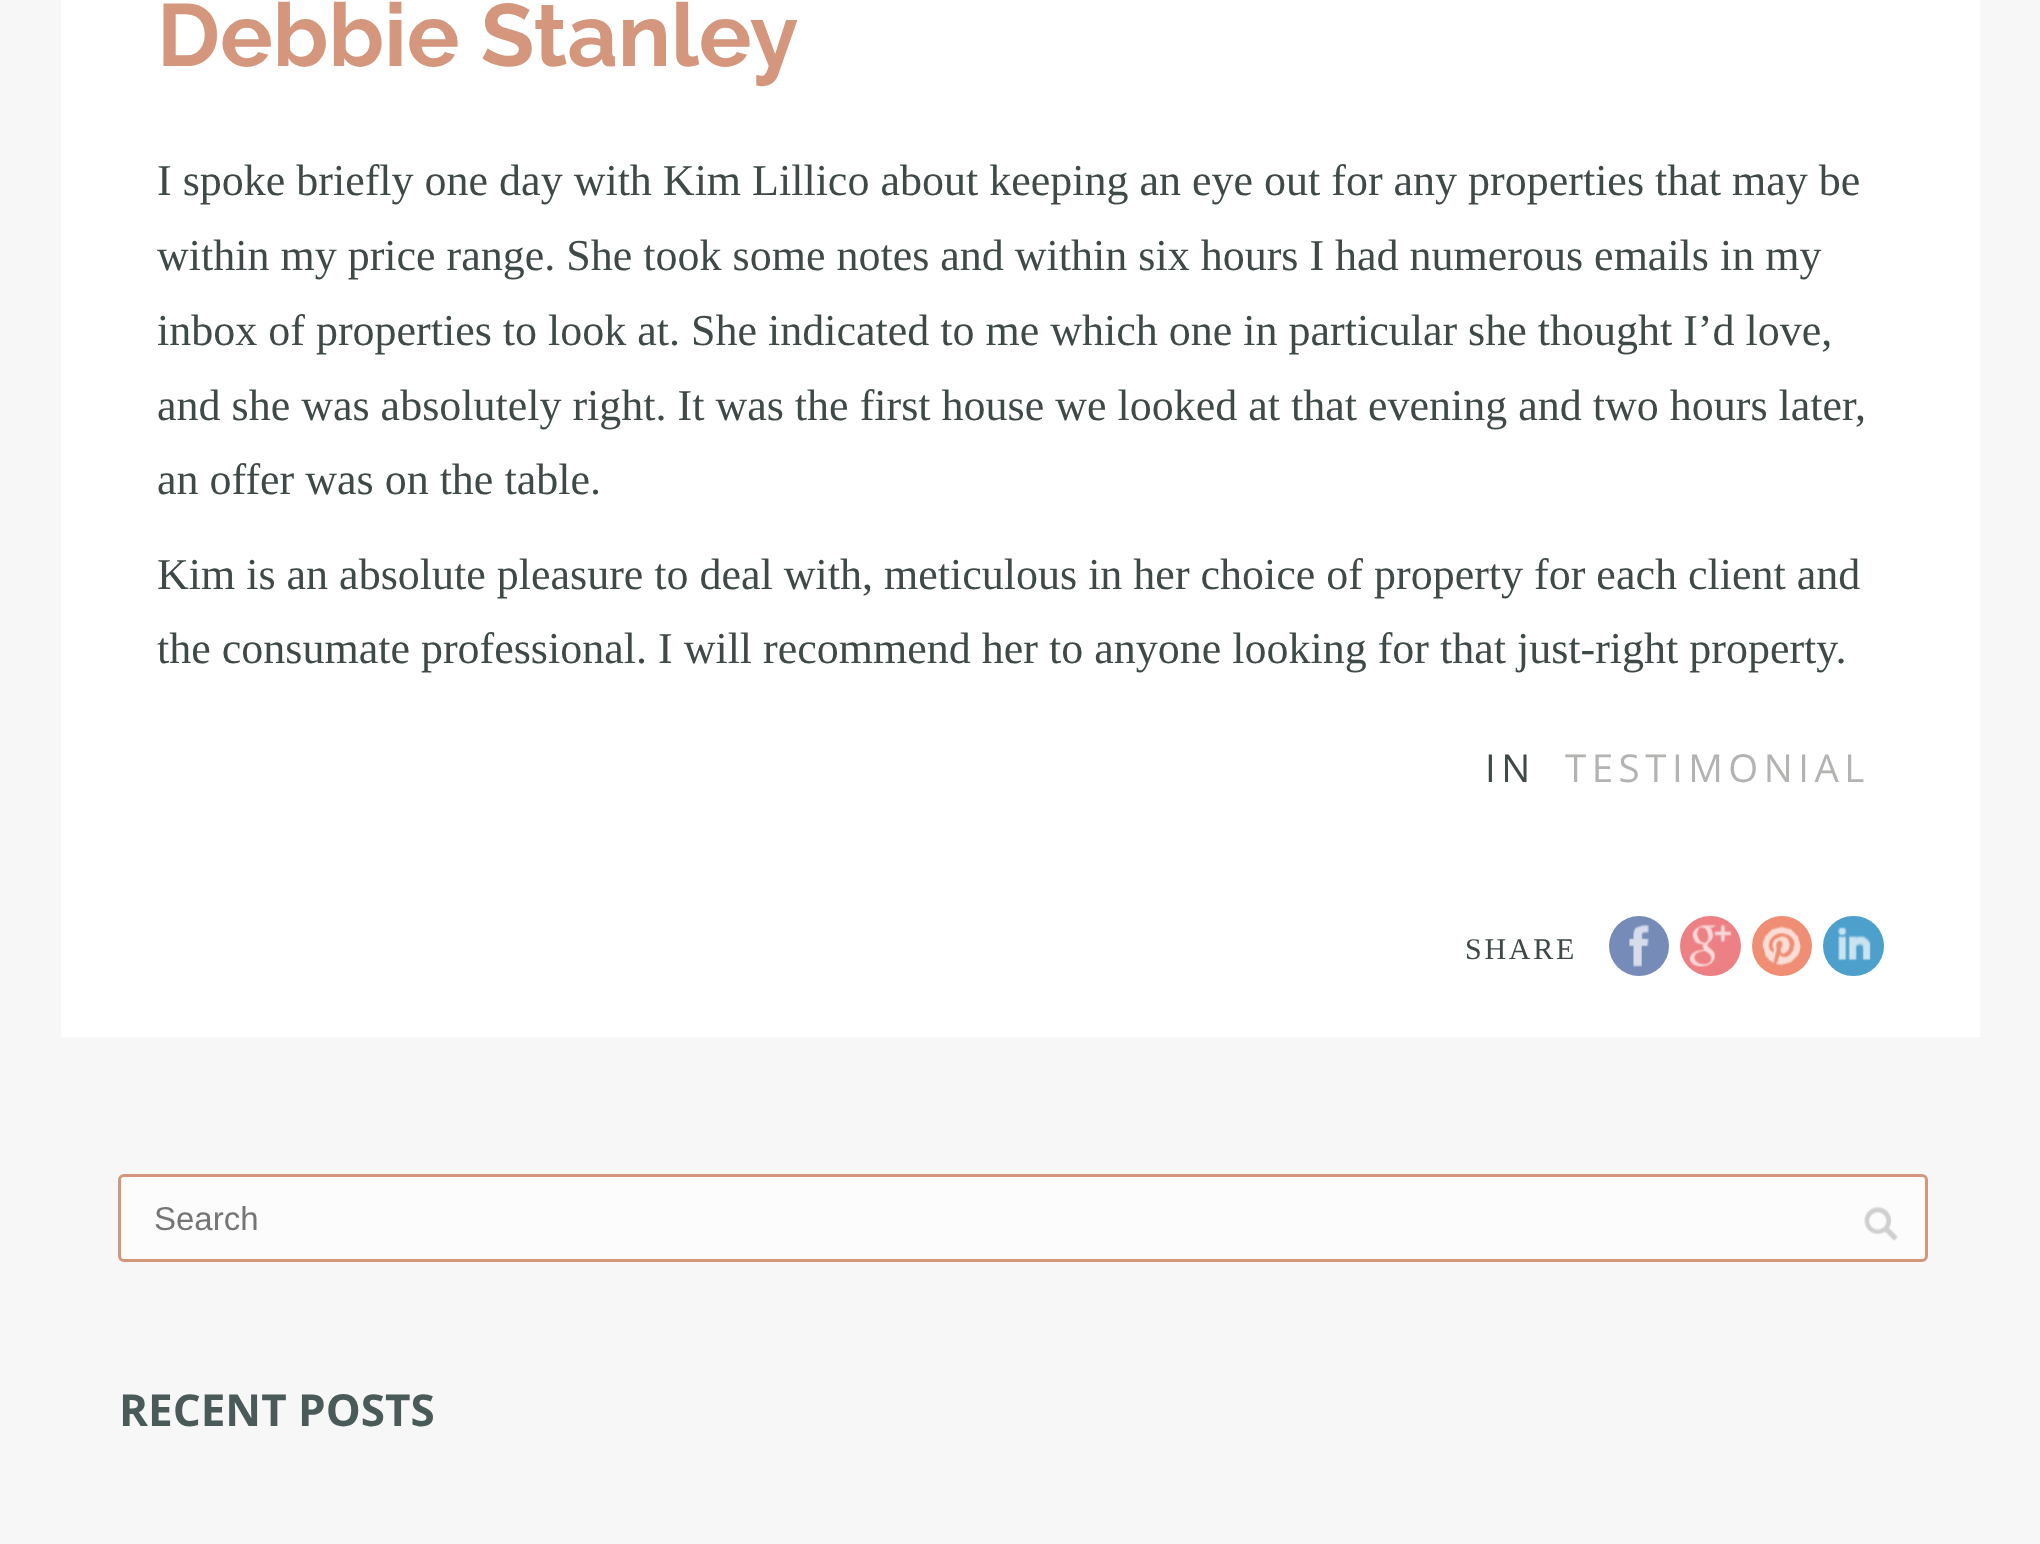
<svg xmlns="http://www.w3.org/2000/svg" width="2040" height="1544">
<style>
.a{font:bold 88px Raleway;fill:#d4967d}
.b{font:44px Liberation Serif;fill:#3f4a48}
.c{font:38.5px Open Sans;letter-spacing:5.5px;fill:#3f4a48}
.d{font:38.5px Open Sans;letter-spacing:5.5px;fill:#b3b3b1}
.e{font:30px Liberation Serif;letter-spacing:2.75px;fill:#3f4a48}
.f{font:33px Liberation Sans;fill:#757575}
.g{font:bold 44px Open Sans;fill:#495a58}
</style>
<rect width="100%" height="100%" fill="#f7f7f7"/>
<path fill="#fff" d="M61 0h1919v1037H61z"/>
<circle fill="#778bb9" cx="1639" cy="946" r="30"/>
<image href="1.png" x="1629" y="924" width="20" height="43"/>
<rect fill="#ed8084" x="1680" y="916" width="61" height="60" rx="30"/>
<image href="2.png" x="1689" y="924" width="43" height="43"/>
<circle fill="#ef8e75" cx="1782" cy="946" r="30"/>
<image href="3.png" x="1762" y="926" width="40" height="40"/>
<rect fill="#4da0cb" x="1823" y="916" width="61" height="60" rx="30"/>
<image href="4.png" x="1837" y="927" width="34" height="34"/>
<rect fill="#fcfcfc" stroke="#d4967d" stroke-width="3" x="119.5" y="1175.5" width="1807" height="85" rx="4.5"/>
<image href="5.png" x="1864" y="1206" width="34" height="35"/>
<text class="a" x="157" y="66">Debbie Stanley</text>
<text class="b" x="157" y="195">I spoke briefly one day with Kim Lillico about keeping an eye out for any properties that may be</text>
<text class="b" x="157" y="270">within my price range. She took some notes and within six hours I had numerous emails in my</text>
<text class="b" x="157" y="345">inbox of properties to look at. She indicated to me which one in particular she thought I’d love,</text>
<text class="b" x="157" y="420">and she was absolutely right. It was the first house we looked at that evening and two hours later,</text>
<text class="b" x="157" y="494">an offer was on the table.</text>
<text class="b" x="157" y="589">Kim is an absolute pleasure to deal with, meticulous in her choice of property for each client and</text>
<text class="b" x="157" y="663">the consumate professional. I will recommend her to anyone looking for that just-right property.</text>
<text class="c" x="1485" y="782">IN</text>
<text class="d" x="1565" y="782">TESTIMONIAL</text>
<text class="e" x="1465" y="959">SHARE</text>
<text class="f" x="154" y="1230">Search</text>
<text class="g" x="119" y="1426">RECENT POSTS</text>
</svg>
